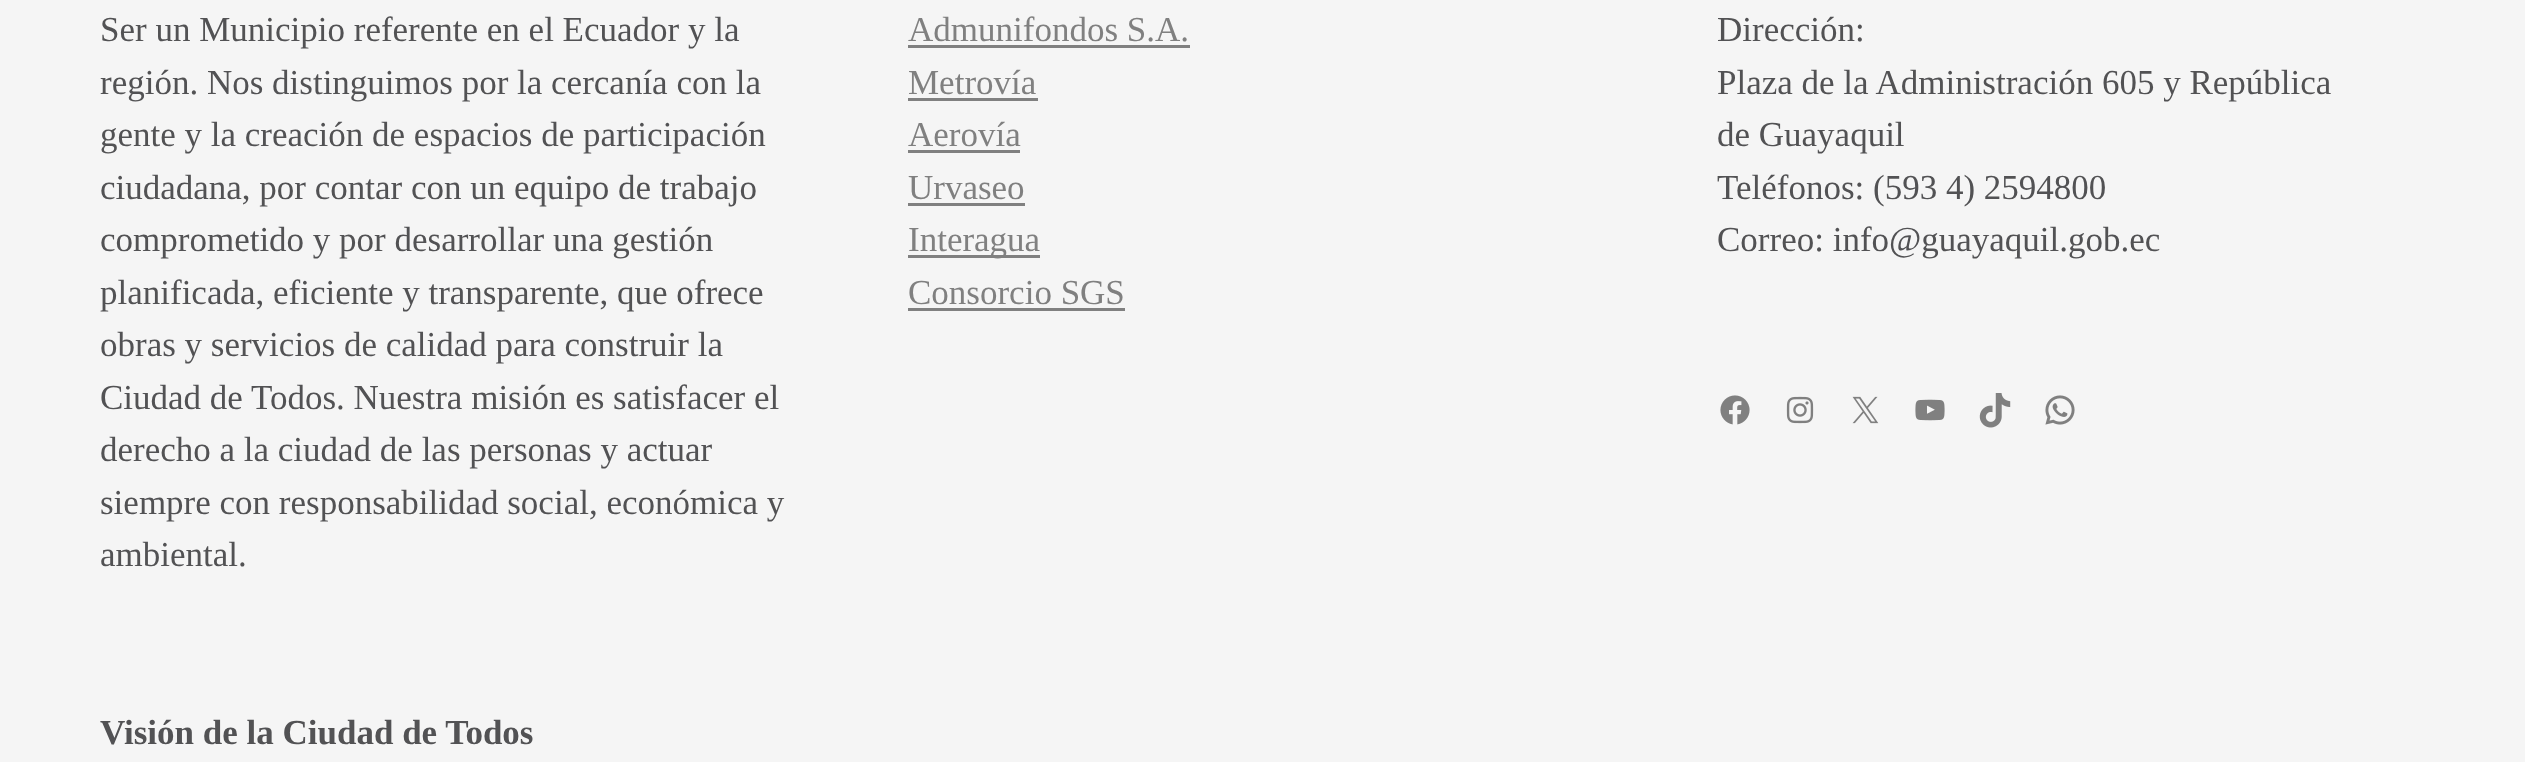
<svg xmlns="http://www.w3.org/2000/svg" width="2525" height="762">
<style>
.a{font:35px Liberation Serif;fill:#525254}
.b{font:bold 35px Liberation Serif;fill:#525254}
.c{font:35px Liberation Serif;fill:#808080}
</style>
<rect width="100%" height="100%" fill="#f5f5f5"/>
<path fill="#808080" d="M908 45h282v3H908z"/>
<path fill="#808080" d="M908 98h130v3H908z"/>
<path fill="#808080" d="M908 150h112v3H908z"/>
<path fill="#808080" d="M908 203h117v3H908z"/>
<path fill="#808080" d="M908 255h132v3H908z"/>
<path fill="#808080" d="M908 308h217v3H908z"/>
<image href="1.png" x="1720" y="395" width="30" height="30"/>
<image href="2.png" x="1786" y="396" width="28" height="28"/>
<image href="3.png" x="1852" y="396" width="27" height="28"/>
<image href="4.png" x="1915" y="399" width="30" height="22"/>
<image href="5.png" x="1979" y="393" width="32" height="35"/>
<image href="6.png" x="2045" y="395" width="30" height="30"/>
<text class="a" x="100" y="41">Ser un Municipio referente en el Ecuador y la</text>
<text class="a" x="100" y="94">región. Nos distinguimos por la cercanía con la</text>
<text class="a" x="100" y="146">gente y la creación de espacios de participación</text>
<text class="a" x="100" y="199">ciudadana, por contar con un equipo de trabajo</text>
<text class="a" x="100" y="251">comprometido y por desarrollar una gestión</text>
<text class="a" x="100" y="304">planificada, eficiente y transparente, que ofrece</text>
<text class="a" x="100" y="356">obras y servicios de calidad para construir la</text>
<text class="a" x="100" y="409">Ciudad de Todos. Nuestra misión es satisfacer el</text>
<text class="a" x="100" y="461">derecho a la ciudad de las personas y actuar</text>
<text class="a" x="100" y="514">siempre con responsabilidad social, económica y</text>
<text class="a" x="100" y="566">ambiental.</text>
<text class="b" x="100" y="744">Visión de la Ciudad de Todos</text>
<text class="c" x="908" y="41">Admunifondos S.A.</text>
<text class="c" x="908" y="94">Metrovía</text>
<text class="c" x="908" y="146">Aerovía</text>
<text class="c" x="908" y="199">Urvaseo</text>
<text class="c" x="908" y="251">Interagua</text>
<text class="c" x="908" y="304">Consorcio SGS</text>
<text class="a" x="1717" y="41">Dirección:</text>
<text class="a" x="1717" y="94">Plaza de la Administración 605 y República</text>
<text class="a" x="1717" y="146">de Guayaquil</text>
<text class="a" x="1717" y="199">Teléfonos: (593 4) 2594800</text>
<text class="a" x="1717" y="251">Correo: info@guayaquil.gob.ec</text>
</svg>
